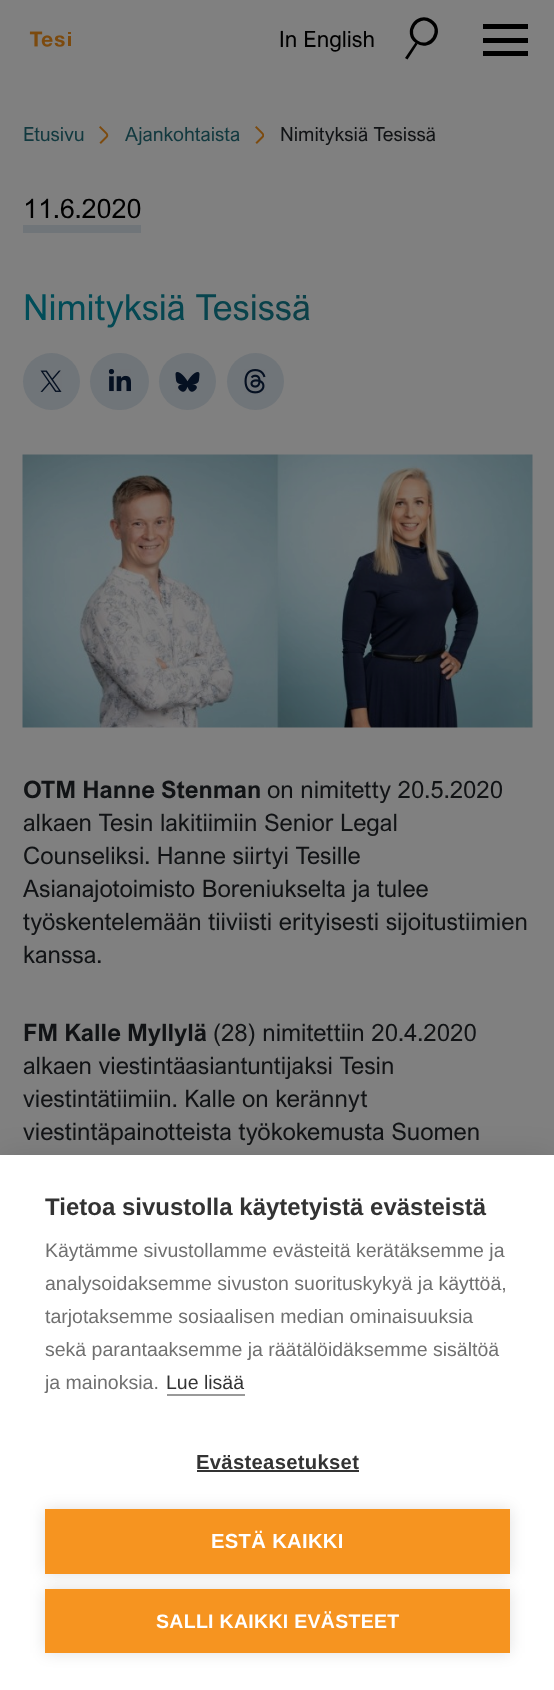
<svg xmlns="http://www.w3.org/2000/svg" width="554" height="1690">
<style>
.a{font:22.5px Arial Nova;fill:#000}
.b{font:19.5px Arial Nova;fill:#12393f}
.c{font:19.5px Arial Nova;fill:#111315}
.d{font:27px Arial Nova;fill:#000}
.e{font:36px Arial Nova;fill:url(#g1)}
.f{font:bold 24px Arial Nova;fill:#111315}
.g{font:24px Arial Nova;fill:#111315}
.h{font:bold 24px Liberation Sans;fill:#333}
.i{font:19.5px Liberation Sans;fill:#707070}
.j{font:19.5px Liberation Sans;fill:#333}
.k{font:bold 20.25px Liberation Sans;letter-spacing:0.3px;fill:#333}
.l{font:bold 20.25px Liberation Sans;letter-spacing:0.3px;fill:#fff}
.m{font:bold 19.5px Liberation Sans;letter-spacing:0.3px;fill:#fff}
</style>
<defs>
<linearGradient id="g1" gradientUnits="userSpaceOnUse" x1="23" y1="307" x2="533" y2="307"><stop offset="0.01" stop-color="#004d59"/><stop offset="0.82" stop-color="#12393f"/></linearGradient>
</defs>
<rect width="100%" height="100%" fill="#808080"/>
<image href="1.png" x="29" y="31" width="42" height="16"/>
<path fill="none" stroke="#000" stroke-width="3.3" d="M430.5 21c14 9 0 30-13.5 21c-13.5-9 0-29.5 13.5-21z"/>
<path fill="#000" d="M415.5 42.5l2 1.5l-10 15.5l-2.5-1.5z"/>
<path fill="#000" d="M483 38h45v5H483z"/>
<path fill="#000" d="M483 24h45v5H483z"/>
<path fill="#000" d="M483 51h45v5H483z"/>
<image href="2.png" x="99" y="126" width="10" height="18"/>
<image href="3.png" x="255" y="126" width="9" height="18"/>
<path fill="#707579" d="M23 225h118v8H23z"/>
<circle fill="#707579" cx="51.5" cy="381.5" r="28.5"/>
<image href="4.png" x="40" y="370" width="22" height="22"/>
<rect fill="#707579" x="90" y="353" width="59" height="57" rx="28.5"/>
<image href="5.png" x="108" y="369" width="23" height="23"/>
<circle fill="#707579" cx="187.5" cy="381.5" r="28.5"/>
<image href="6.png" x="175" y="372" width="25" height="20"/>
<circle fill="#707579" cx="255.5" cy="381.5" r="28.5"/>
<image href="7.png" x="244" y="369" width="22" height="25"/>
<image href="8.png" x="22" y="454" width="511" height="274"/>
<path fill="#0000001a" filter="blur(15px)" d="M0 1155h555v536H0z"/>
<path fill="#fff" d="M0 1155h554v535H0z"/>
<path fill="#999" d="M167 1394h78v2H167z"/>
<path fill="#333" d="M197 1470h162v2H197z"/>
<path fill="#0000001f" filter="blur(7.5px)" d="M45 1509h465v65H45z"/>
<path fill="#f69420" d="M45 1509h465v65H45z"/>
<path fill="#0000001f" filter="blur(7.5px)" d="M45 1589h465v64H45z"/>
<path fill="#f69420" d="M45 1589h465v64H45z"/>
<text class="a" x="279" y="47">In English</text>
<text class="b" x="23" y="141">Etusivu</text>
<text class="b" x="125" y="141">Ajankohtaista</text>
<text class="c" x="280" y="141">Nimityksiä Tesissä</text>
<text class="d" x="23" y="218">11.6.2020</text>
<text class="e" x="23" y="320">Nimityksiä Tesissä</text>
<text class="f" x="23" y="798">OTM Hanne Stenman</text>
<text class="g" x="267" y="798">on nimitetty 20.5.2020</text>
<text class="g" x="23" y="831">alkaen Tesin lakitiimiin Senior Legal</text>
<text class="g" x="23" y="864">Counseliksi. Hanne siirtyi Tesille</text>
<text class="g" x="23" y="897">Asianajotoimisto Boreniukselta ja tulee</text>
<text class="g" x="23" y="930">työskentelemään tiiviisti erityisesti sijoitustiimien</text>
<text class="g" x="23" y="963">kanssa.</text>
<text class="f" x="23" y="1041">FM Kalle Myllylä</text>
<text class="g" x="213" y="1041">(28) nimitettiin 20.4.2020</text>
<text class="g" x="23" y="1074">alkaen viestintäasiantuntijaksi Tesin</text>
<text class="g" x="23" y="1107">viestintätiimiin. Kalle on kerännyt</text>
<text class="g" x="23" y="1140">viestintäpainotteista työkokemusta Suomen</text>
<text class="h" x="45" y="1215">Tietoa sivustolla käytetyistä evästeistä</text>
<text class="i" x="45" y="1257">Käytämme sivustollamme evästeitä kerätäksemme ja</text>
<text class="i" x="45" y="1290">analysoidaksemme sivuston suorituskykyä ja käyttöä,</text>
<text class="i" x="45" y="1323">tarjotaksemme sosiaalisen median ominaisuuksia</text>
<text class="i" x="45" y="1356">sekä parantaaksemme ja räätälöidäksemme sisältöä</text>
<text class="i" x="45" y="1389">ja mainoksia.</text>
<text class="j" x="166" y="1389">Lue lisää</text>
<text class="k" x="196" y="1469">Evästeasetukset</text>
<text class="l" x="211" y="1548">ESTÄ KAIKKI</text>
<text class="m" x="156" y="1628">SALLI KAIKKI EVÄSTEET</text>
</svg>
